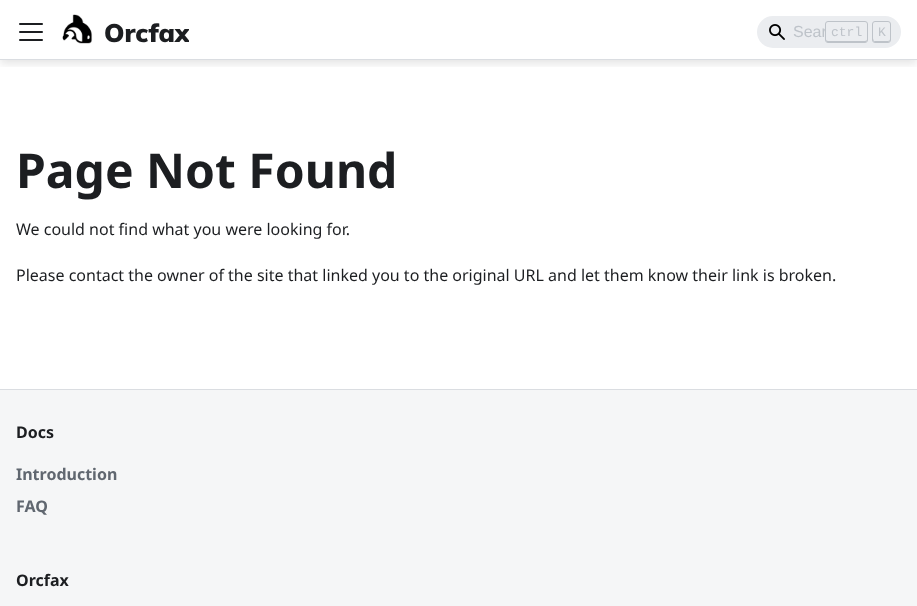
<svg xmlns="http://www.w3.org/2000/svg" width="917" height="606">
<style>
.a{font:900 25.5px Mulish;fill:#1c1e21}
.b{font:16px Liberation Sans;fill:#bec3c9}
.c{font:13px Liberation Mono;fill:#bec3c9}
.d{font:bold 48px Noto Sans;fill:#1c1e21}
.e{font:16px Noto Sans;fill:#1c1e21}
.f{font:bold 16px Noto Sans;fill:#1c1e21}
.g{font:bold 16px Noto Sans;fill:#606770}
</style>
<defs>
<clipPath id="clip1"><path d="M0 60h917v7H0z"/></clipPath>
<clipPath id="clip2"><path d="M104 11h85v42H104z"/></clipPath>
</defs>
<rect width="100%" height="100%" fill="#fff"/>
<g clip-path="url(#clip1)">
<path fill="#0000001a" filter="blur(4px)" d="M0 4h917v60H0z"/>
</g>
<path fill="#dadde1" d="M0 59h917v1H0z"/>
<image href="1.png" x="19" y="23" width="24" height="18"/>
<image href="2.png" x="62" y="14" width="31" height="30"/>
<rect fill="#ebedf0" x="757" y="16" width="144" height="32" rx="16"/>
<image href="3.png" x="769" y="24" width="16" height="16"/>
<path fill="#bec3c9" d="M890 39c0 1-1 2-2 2h-14l-1-2.5c0 3.5 1 3.5 4 3.5h9c3 0 4 0 4-3z"/>
<rect fill="none" stroke="#bec3c9" x="872.5" y="21.5" width="18" height="21" rx="2.5"/>
<path fill="#f5f6f7" d="M0 390h917v216H0z"/>
<path fill="#dadde1" d="M0 389h917v1H0z"/>
<g clip-path="url(#clip2)">
<text class="a" x="104" y="42">Orcfax</text>
</g>
<text class="b" x="793" y="37">Sear</text>
<rect fill="#ebedf0" x="825" y="21" width="43" height="22" rx="3"/>
<path fill="#bec3c9" d="M826 39c0 5 4 3 8 3h25c4 0 8 2 8-3c0 1-1 2-2 2h-37c-1 0-2-1-2-2z"/>
<rect fill="none" stroke="#bec3c9" x="825.5" y="21.5" width="42" height="21" rx="2.5"/>
<text class="c" x="831" y="36">ctrl</text>
<text class="c" x="878" y="36">K</text>
<text class="d" x="16" y="188">Page Not Found</text>
<text class="e" x="16" y="235">We could not find what you were looking for.</text>
<text class="e" x="16" y="281">Please contact the owner of the site that linked you to the original URL and let them know their link is broken.</text>
<text class="f" x="16" y="438">Docs</text>
<text class="g" x="16" y="480">Introduction</text>
<text class="g" x="16" y="512">FAQ</text>
<text class="f" x="16" y="586">Orcfax</text>
</svg>
